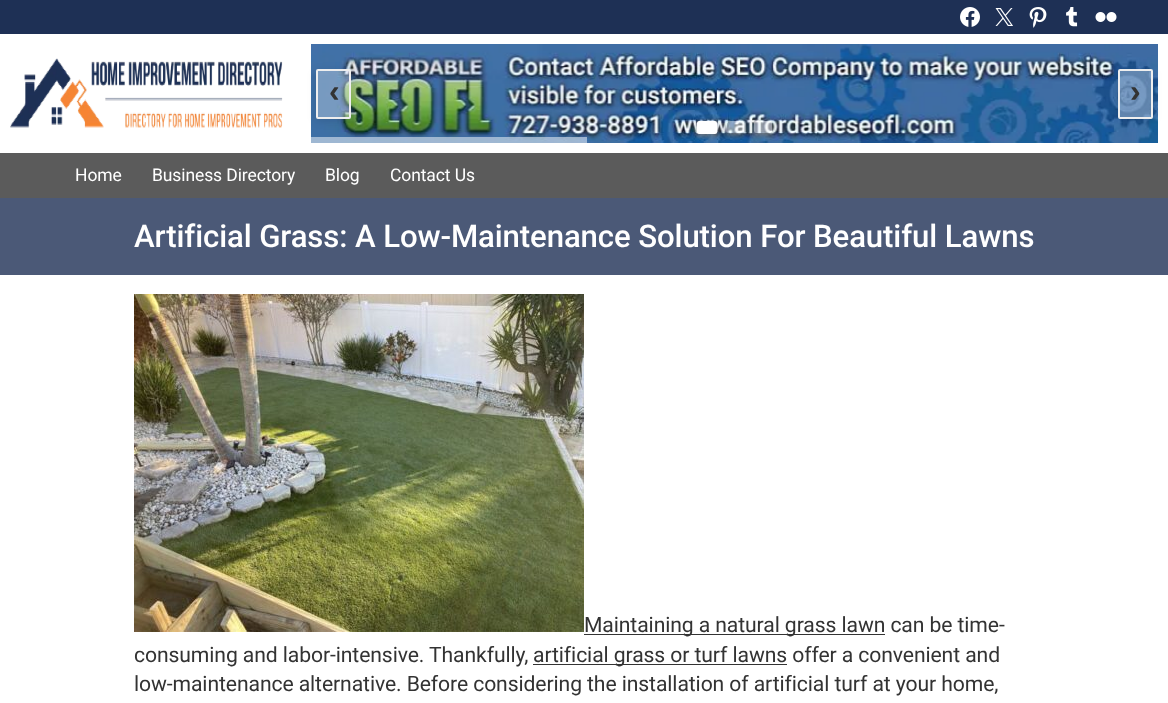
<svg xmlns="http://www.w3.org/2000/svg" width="1168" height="703">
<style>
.a{font:bold 32px Liberation Sans;fill:#333}
.b{font:17.5px Roboto;letter-spacing:-0.1px;fill:#fff}
.c{font:500 31.15px Roboto;letter-spacing:-0.1px;fill:#fff}
.d{font:21.15px Roboto;letter-spacing:-0.1px;fill:#333}
</style>
<defs>
<clipPath id="clip1"><path d="M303 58h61v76h-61zm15 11h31c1 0 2 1 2 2v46c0 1-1 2-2 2h-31c-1 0-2-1-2-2v-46c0-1 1-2 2-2z" clip-rule="evenodd"/></clipPath>
<clipPath id="clip2"><path d="M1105 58h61v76h-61zm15 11h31c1 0 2 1 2 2v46c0 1-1 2-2 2h-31c-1 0-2-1-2-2v-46c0-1 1-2 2-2z" clip-rule="evenodd"/></clipPath>
<clipPath id="clip3"><path d="M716 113h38v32h-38zm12 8h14c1 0 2 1 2 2v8c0 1-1 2-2 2h-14c-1 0-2-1-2-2v-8c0-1 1-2 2-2z" clip-rule="evenodd"/></clipPath>
<clipPath id="clip4"><path d="M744 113h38v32h-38zm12 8h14c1 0 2 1 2 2v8c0 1-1 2-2 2h-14c-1 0-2-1-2-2v-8c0-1 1-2 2-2z" clip-rule="evenodd"/></clipPath>
</defs>
<rect width="100%" height="100%" fill="#fff"/>
<path fill="#1e3055" d="M0 0h1168v34H0z"/>
<image href="1.png" x="960" y="7" width="20" height="20"/>
<image href="2.png" x="995" y="8" width="18" height="18"/>
<image href="3.png" x="1029" y="7" width="18" height="21"/>
<image href="4.png" x="1066" y="7" width="12" height="20"/>
<image href="5.png" x="1095" y="12" width="22" height="10"/>
<image href="6.png" x="10" y="58" width="273" height="70"/>
<image href="7.png" x="311" y="44" width="847" height="99"/>
<g clip-path="url(#clip1)">
<rect fill="#0000001f" filter="blur(4px)" x="316" y="71" width="35" height="50" rx="2"/>
</g>
<rect fill="#ffffff4d" stroke="#eee" stroke-width="2" x="317" y="70" width="33" height="48" rx="1"/>
<g clip-path="url(#clip2)">
<rect fill="#0000001f" filter="blur(4px)" x="1118" y="71" width="35" height="50" rx="2"/>
</g>
<rect fill="#ffffff4d" stroke="#eee" stroke-width="2" x="1119" y="70" width="33" height="48" rx="1"/>
<path fill="#ffffff80" d="M311 137h276v6H311z"/>
<g clip-path="url(#clip3)">
<rect fill="#919191d9" filter="blur(3px)" x="726" y="123" width="18" height="12" rx="2"/>
</g>
<rect fill="#ffffff80" x="726" y="121" width="18" height="12" rx="2"/>
<rect fill="#919191d9" filter="blur(3.5px)" x="697" y="123" width="20" height="13" rx="2"/>
<rect fill="#fff" x="697" y="121" width="20" height="13" rx="2"/>
<g clip-path="url(#clip4)">
<rect fill="#919191d9" filter="blur(3px)" x="754" y="123" width="18" height="12" rx="2"/>
</g>
<rect fill="#ffffff80" x="754" y="121" width="18" height="12" rx="2"/>
<path fill="#5b5b5b" d="M0 153h1168v45H0z"/>
<path fill="#4b5977" d="M0 198h1168v77H0z"/>
<image href="8.png" x="134" y="294" width="450" height="338"/>
<path fill="#333" d="M584 634h301v1H584z"/>
<path fill="#333" d="M533 664h254v1H533z"/>
<text class="a" x="329" y="102">‹</text>
<text class="a" x="1130" y="102">›</text>
<text class="b" x="75" y="181">Home</text>
<text class="b" x="152" y="181">Business Directory</text>
<text class="b" x="325" y="181">Blog</text>
<text class="b" x="390" y="181">Contact Us</text>
<text class="c" x="134" y="247">Artificial Grass: A Low-Maintenance Solution For Beautiful Lawns</text>
<text class="d" x="584" y="632">Maintaining a natural grass lawn can be time-</text>
<text class="d" x="134" y="662">consuming and labor-intensive. Thankfully,</text>
<text class="d" x="533" y="662">artificial grass or turf lawns offer a convenient and</text>
<text class="d" x="134" y="691">low-maintenance alternative. Before considering the installation of artificial turf at your home,</text>
</svg>
